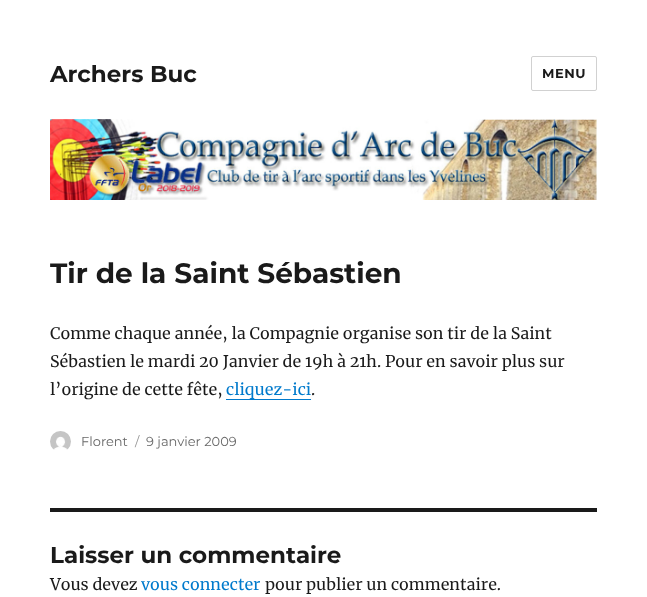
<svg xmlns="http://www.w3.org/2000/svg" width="647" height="597">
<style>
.a{font:100 23px Montserrat;fill:#1a1a1a}
.b{font:100 13px Montserrat;letter-spacing:0.5px;fill:#1a1a1a}
.c{font:100 28px Montserrat;fill:#1a1a1a}
.d{font:16px Merriweather;fill:#1a1a1a}
.e{font:16px Merriweather;fill:#007acc}
.f{font:100 13px 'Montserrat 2';fill:#686868}
.g{font:100 13px 'Montserrat 2';fill:#959595}
</style>
<rect width="100%" height="100%" fill="#fff"/>
<rect fill="none" stroke="#d1d1d1" x="531.5" y="56.5" width="65" height="34" rx="1.5"/>
<image href="1.png" x="50" y="119" width="547" height="81"/>
<path fill="#007acc" d="M226 399h85v1H226z"/>
<image href="2.png" x="50" y="431" width="21" height="19"/>
<path fill="#1a1a1a" d="M50 508h547v4H50z"/>
<text class="a" x="50" y="82">Archers Buc</text>
<text class="b" x="542" y="78">MENU</text>
<text class="c" x="50" y="283">Tir de la Saint Sébastien</text>
<text class="d" x="50" y="339">Comme chaque année, la Compagnie organise son tir de la Saint</text>
<text class="d" x="50" y="367">Sébastien le mardi 20 Janvier de 19h à 21h. Pour en savoir plus sur</text>
<text class="d" x="50" y="395">l’origine de cette fête,</text>
<text class="e" x="226" y="395">cliquez-ici</text>
<text class="d" x="311" y="395">.</text>
<text class="f" x="81" y="446">Florent</text>
<text class="g" x="135" y="446">/</text>
<text class="f" x="146" y="446">9 janvier 2009</text>
<text class="a" x="50" y="563">Laisser un commentaire</text>
<text class="d" x="50" y="590">Vous devez</text>
<text class="e" x="141" y="590">vous connecter</text>
<text class="d" x="265" y="590">pour publier un commentaire.</text>
</svg>
